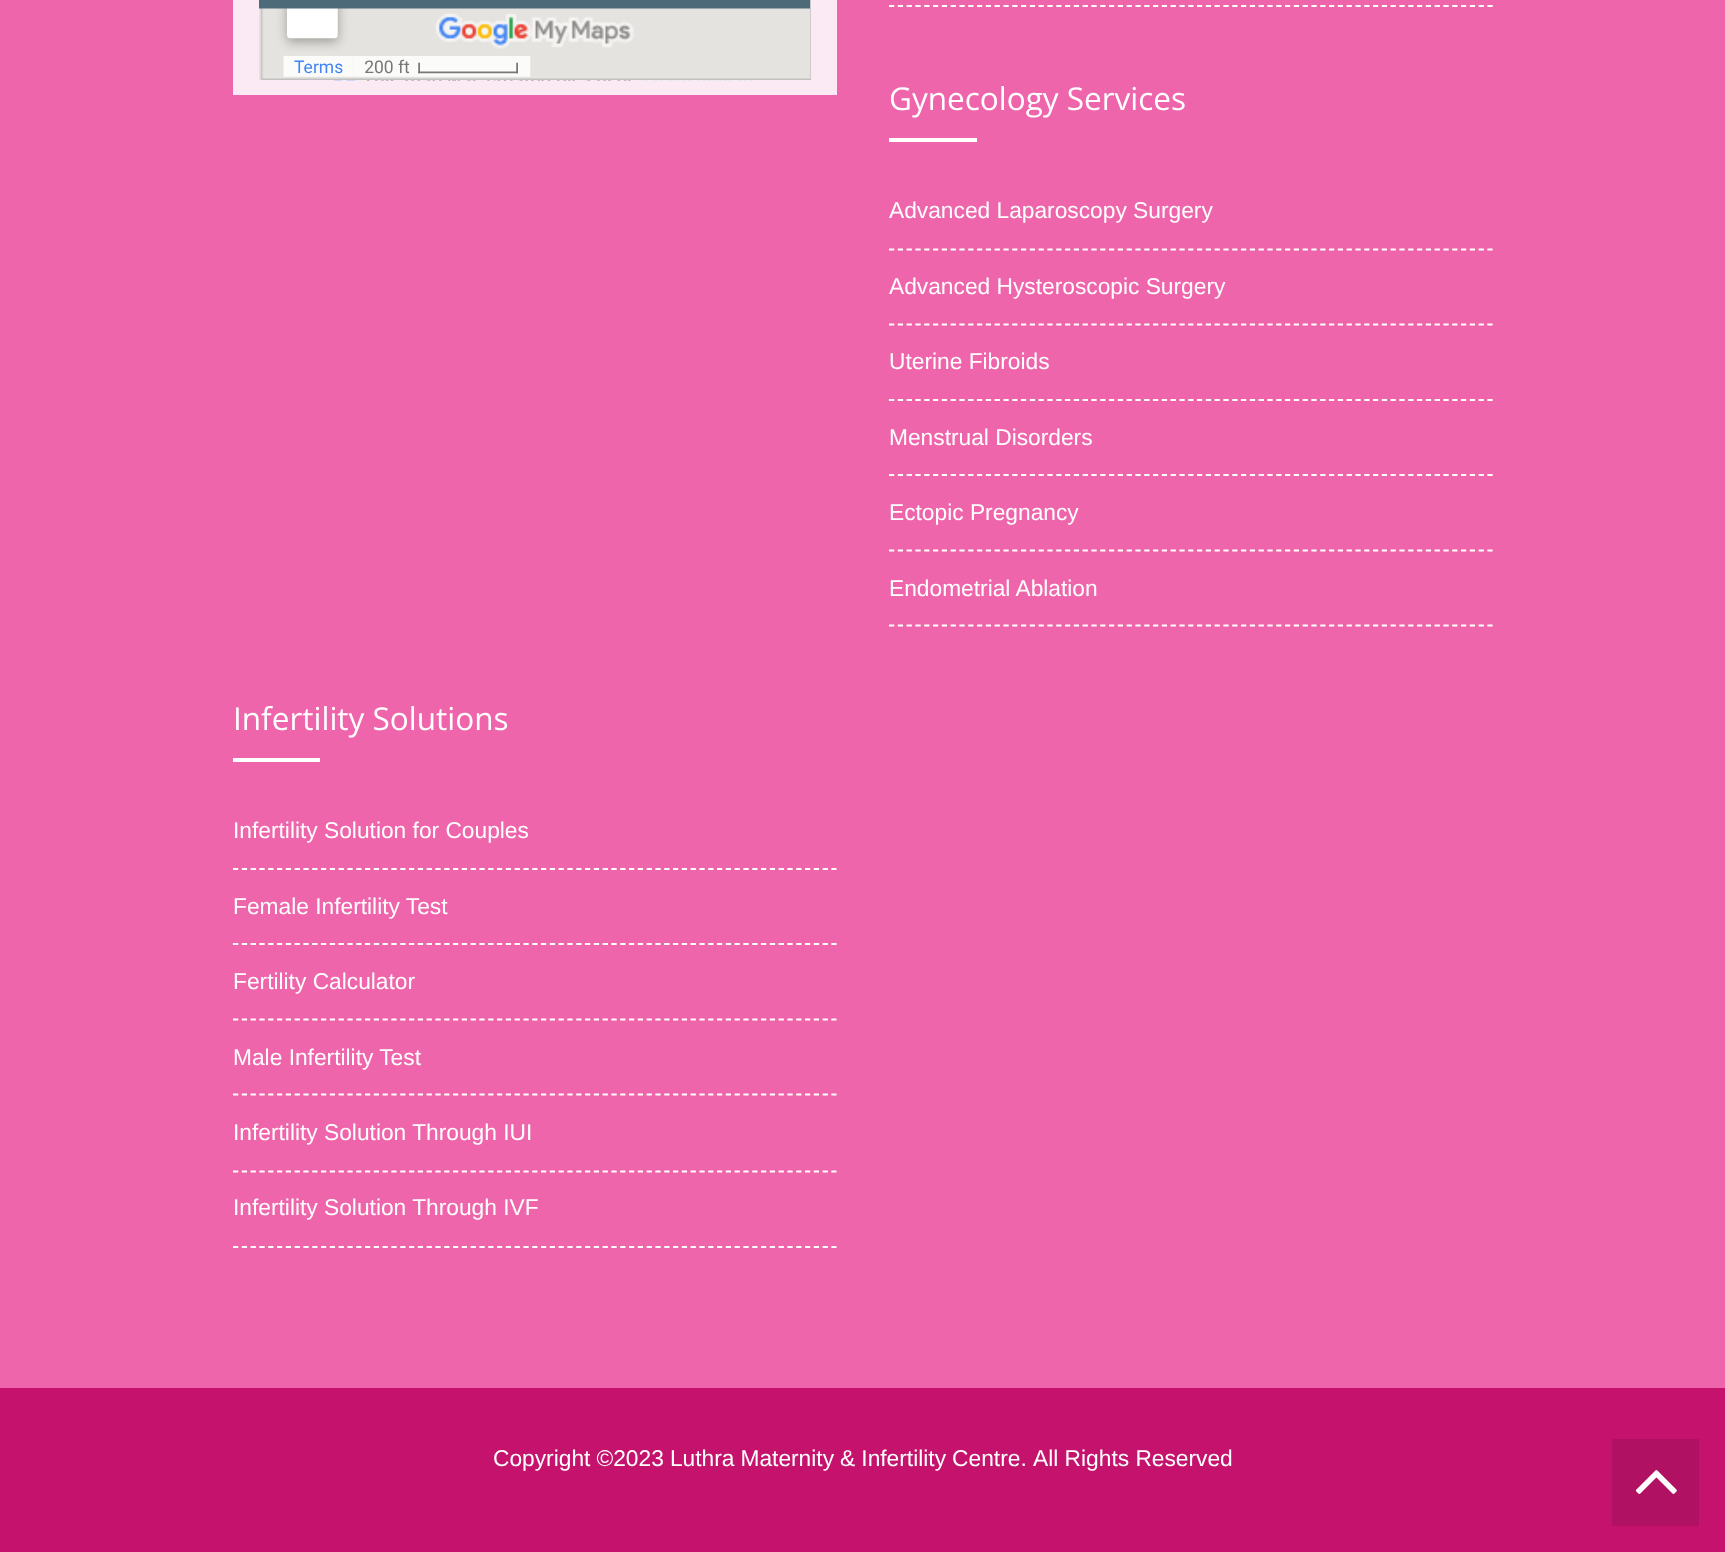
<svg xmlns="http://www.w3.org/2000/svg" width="1725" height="1552">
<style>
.a{font:31.5px Open Sans;fill:#fff}
.b{font:22.75px Liberation Sans;fill:#fff}
</style>
<rect width="100%" height="100%" fill="#ef65ab"/>
<path fill="#fbe9f3" d="M233 0h604v95H233z"/>
<image href="1.png" x="259" y="0" width="552" height="81"/>
<path fill="none" stroke="#fff" stroke-width="1.8" stroke-dasharray="5.25 3.55" d="M889 6h604"/>
<path fill="#fff" d="M889 138h88v4H889z"/>
<path fill="none" stroke="#fff" stroke-width="1.8" stroke-dasharray="5.25 3.55" d="M889 249.5h604"/>
<path fill="none" stroke="#fff" stroke-width="1.8" stroke-dasharray="5.25 3.55" d="M889 324.5h604"/>
<path fill="none" stroke="#fff" stroke-width="1.8" stroke-dasharray="5.25 3.55" d="M889 400h604"/>
<path fill="none" stroke="#fff" stroke-width="1.8" stroke-dasharray="5.25 3.55" d="M889 475h604"/>
<path fill="none" stroke="#fff" stroke-width="1.8" stroke-dasharray="5.25 3.55" d="M889 550.5h604"/>
<path fill="none" stroke="#fff" stroke-width="1.8" stroke-dasharray="5.25 3.55" d="M889 625.5h604"/>
<path fill="#fff" d="M233 758h87v4H233z"/>
<path fill="none" stroke="#fff" stroke-width="1.8" stroke-dasharray="5.25 3.55" d="M233 869h603.5"/>
<path fill="none" stroke="#fff" stroke-width="1.8" stroke-dasharray="5.25 3.55" d="M233 944h603.5"/>
<path fill="none" stroke="#fff" stroke-width="1.8" stroke-dasharray="5.25 3.55" d="M233 1019.5h603.5"/>
<path fill="none" stroke="#fff" stroke-width="1.8" stroke-dasharray="5.25 3.55" d="M233 1094.5h603.5"/>
<path fill="none" stroke="#fff" stroke-width="1.8" stroke-dasharray="5.25 3.55" d="M233 1171.5h603.5"/>
<path fill="none" stroke="#fff" stroke-width="1.8" stroke-dasharray="5.25 3.55" d="M233 1247h603.5"/>
<path fill="#c5136d" d="M0 1388h1725v164H0z"/>
<path fill="#b11162" d="M1612 1439h87v87H1612z"/>
<image href="2.png" x="1635" y="1470" width="42" height="24"/>
<text class="a" x="889" y="110">Gynecology Services</text>
<text class="b" x="889" y="218">Advanced Laparoscopy Surgery</text>
<text class="b" x="889" y="294">Advanced Hysteroscopic Surgery</text>
<text class="b" x="889" y="369">Uterine Fibroids</text>
<text class="b" x="889" y="445">Menstrual Disorders</text>
<text class="b" x="889" y="520">Ectopic Pregnancy</text>
<text class="b" x="889" y="596">Endometrial Ablation</text>
<text class="a" x="233" y="730">Infertility Solutions</text>
<text class="b" x="233" y="838">Infertility Solution for Couples</text>
<text class="b" x="233" y="914">Female Infertility Test</text>
<text class="b" x="233" y="989">Fertility Calculator</text>
<text class="b" x="233" y="1065">Male Infertility Test</text>
<text class="b" x="233" y="1140">Infertility Solution Through IUI</text>
<text class="b" x="233" y="1215">Infertility Solution Through IVF</text>
<text class="b" x="493" y="1466" word-spacing="-0.25">Copyright ©2023 Luthra Maternity &amp; Infertility Centre.</text>
<text class="b" x="1033" y="1466">All Rights Reserved</text>
</svg>
